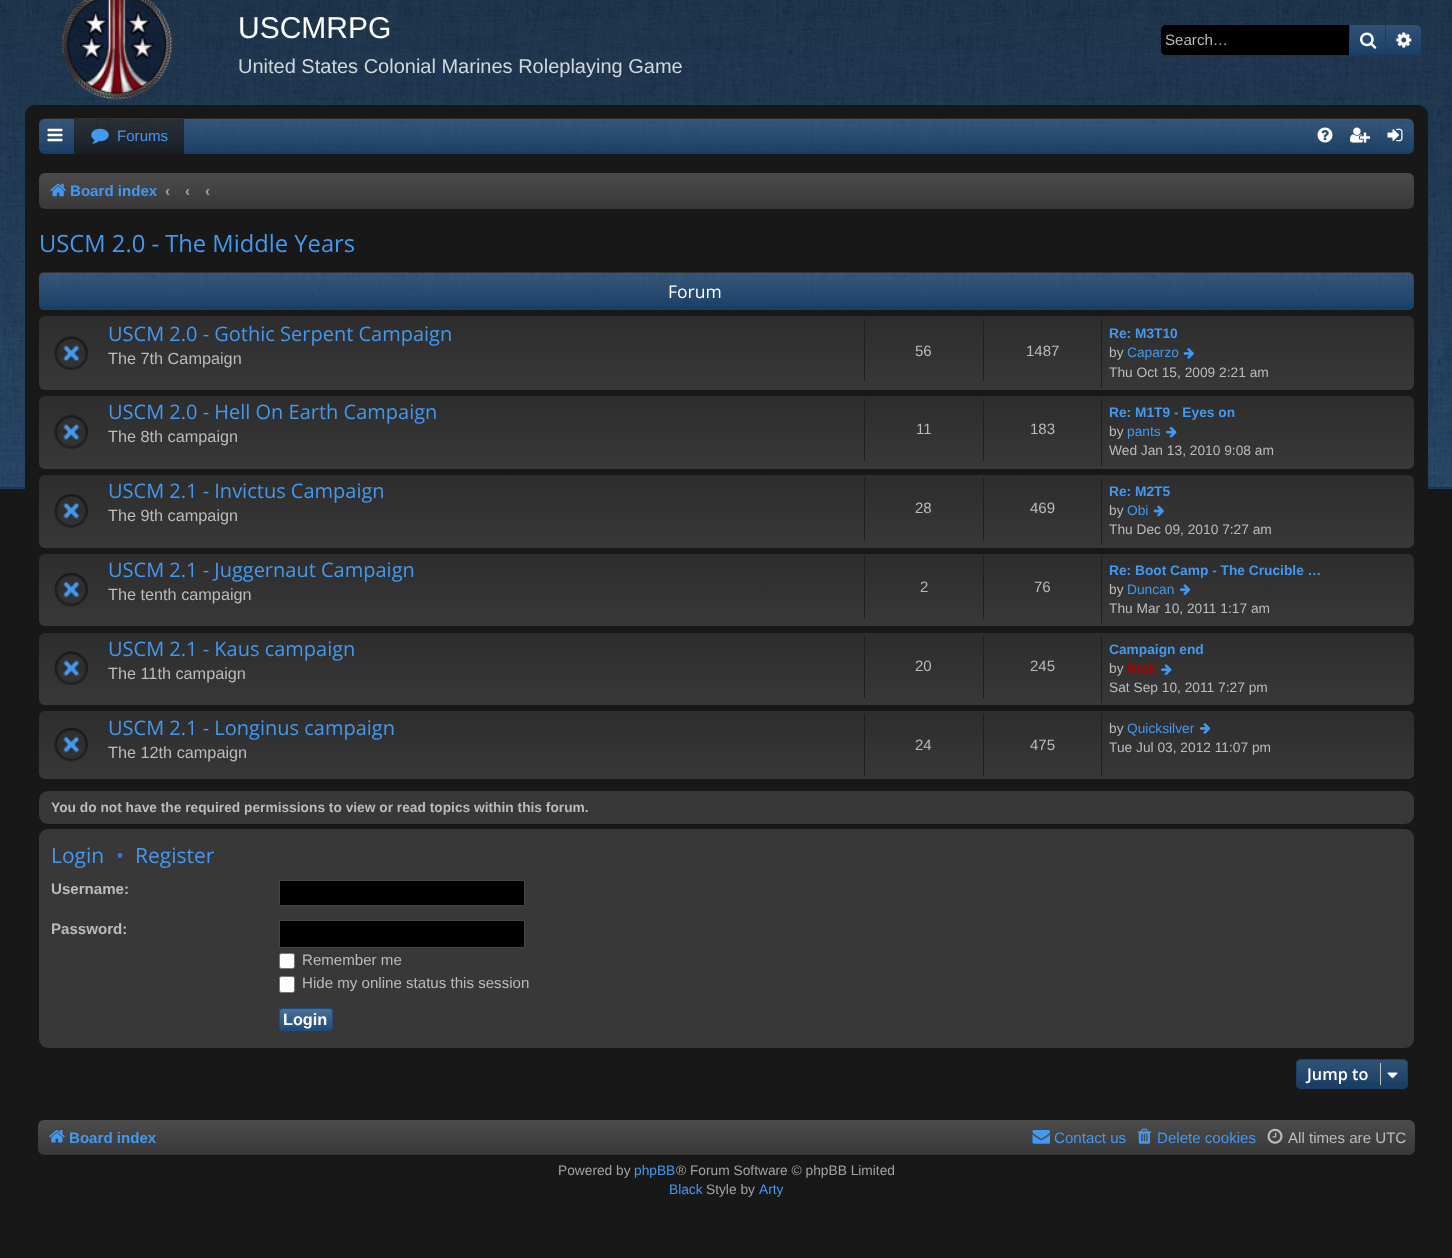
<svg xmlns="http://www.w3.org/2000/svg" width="1452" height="1258">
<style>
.a{font:30px Liberation Sans;fill:#fff}
.b{font:20px Liberation Sans;fill:#d2d7dc}
.c{font:15.1px Liberation Sans;fill:#bbb}
.d{font:15.1px Liberation Sans;fill:#4398ef}
.e{font:bold 15.1px Liberation Sans;fill:#4398ef}
.f{font:bold 15.1px Liberation Sans;fill:#a2a2a2}
.g{font:23.75px Open Sans;fill:#4398ef}
.h{font:17.5px Open Sans;fill:#fff}
.i{font:20px Open Sans;fill:#4398ef}
.j{font:16.25px Liberation Sans;fill:#bbb}
.k{font:15px Liberation Sans;fill:#bbb}
.l{font:bold 13.75px Liberation Sans;fill:#4398ef}
.m{font:13.75px Liberation Sans;fill:#bbb}
.n{font:13.75px Liberation Sans;fill:#4398ef}
.o{font:bold 13.75px Liberation Sans;fill:#a00}
.p{font:bold 13.75px Liberation Sans;fill:#bbb}
.q{font:21px Open Sans;fill:#4398ef}
.r{font:21px Open Sans;fill:#347fcb}
.s{font:bold 15.1px Liberation Sans;fill:#bbb}
.t{font:bold 16.25px Liberation Sans;fill:#fff}
.u{font:600 16.25px Open Sans;fill:#fff}
.v{font:13.75px Liberation Sans;fill:#a2a2a2}
</style>
<defs>
<linearGradient id="g1" gradientUnits="userSpaceOnUse" x1="1368" y1="25" x2="1368" y2="55"><stop offset="0" stop-color="#315275"/><stop offset="1" stop-color="#1a3f66"/></linearGradient>
<linearGradient id="g2" gradientUnits="userSpaceOnUse" x1="1404" y1="25" x2="1404" y2="55"><stop offset="0" stop-color="#fff" stop-opacity="0.1"/><stop offset="1" stop-color="#fff" stop-opacity="0"/></linearGradient>
<linearGradient id="g3" gradientUnits="userSpaceOnUse" x1="726" y1="172" x2="726" y2="209"><stop offset="0" stop-color="#fff" stop-opacity="0.1"/><stop offset="1" stop-color="#fff" stop-opacity="0"/></linearGradient>
<linearGradient id="g4" gradientUnits="userSpaceOnUse" x1="726" y1="316" x2="726" y2="390"><stop offset="0" stop-color="#000" stop-opacity="0.2"/><stop offset="1" stop-color="#000" stop-opacity="0"/></linearGradient>
<linearGradient id="g5" gradientUnits="userSpaceOnUse" x1="726" y1="396" x2="726" y2="469"><stop offset="0" stop-color="#000" stop-opacity="0.2"/><stop offset="1" stop-color="#000" stop-opacity="0"/></linearGradient>
<linearGradient id="g6" gradientUnits="userSpaceOnUse" x1="726" y1="475" x2="726" y2="548"><stop offset="0" stop-color="#000" stop-opacity="0.2"/><stop offset="1" stop-color="#000" stop-opacity="0"/></linearGradient>
<linearGradient id="g7" gradientUnits="userSpaceOnUse" x1="726" y1="554" x2="726" y2="626"><stop offset="0" stop-color="#000" stop-opacity="0.2"/><stop offset="1" stop-color="#000" stop-opacity="0"/></linearGradient>
<linearGradient id="g8" gradientUnits="userSpaceOnUse" x1="726" y1="632" x2="726" y2="705"><stop offset="0" stop-color="#000" stop-opacity="0.2"/><stop offset="1" stop-color="#000" stop-opacity="0"/></linearGradient>
<linearGradient id="g9" gradientUnits="userSpaceOnUse" x1="726" y1="711" x2="726" y2="779"><stop offset="0" stop-color="#000" stop-opacity="0.2"/><stop offset="1" stop-color="#000" stop-opacity="0"/></linearGradient>
<clipPath id="clip1"><rect x="279" y="1008" width="54" height="23" rx="4"/></clipPath>
<linearGradient id="g10" gradientUnits="userSpaceOnUse" x1="306" y1="1009" x2="306" y2="1030"><stop offset="0" stop-color="#fff" stop-opacity="0.2"/><stop offset="1" stop-color="#fff" stop-opacity="0"/></linearGradient>
<clipPath id="clip2"><rect x="1296" y="1059" width="112" height="30" rx="5"/></clipPath>
<linearGradient id="g11" gradientUnits="userSpaceOnUse" x1="1352" y1="1060" x2="1352" y2="1088"><stop offset="0" stop-color="#fff" stop-opacity="0.1"/><stop offset="1" stop-color="#fff" stop-opacity="0"/></linearGradient>
<linearGradient id="g12" gradientUnits="userSpaceOnUse" x1="726" y1="1120" x2="726" y2="1155"><stop offset="0" stop-color="#fff" stop-opacity="0.1"/><stop offset="1" stop-color="#fff" stop-opacity="0"/></linearGradient>
</defs>
<rect width="100%" height="100%" fill="#181818"/>
<path fill="#1a3a5c" d="M0 0h1452v489H0z"/>
<image href="1.png" x="0" y="0" width="1452" height="489"/>
<image href="2.png" x="61" y="0" width="112" height="100"/>
<path fill="#000" d="M1166 25h183v30h-183c-3 0-5-2-5-5v-20c0-3 2-5 5-5z"/>
<path fill="url(#g1)" d="M1350 25h35v30H1350z"/>
<path fill="#1a3f66" d="M1385 25h1v30H1385z"/>
<path fill="#1a3f66" d="M1349 25h1v30H1349z"/>
<image href="3.png" x="1360" y="32" width="17" height="17"/>
<path fill="#1a3f66" d="M1386 25h30c3 0 5 2 5 5v20c0 3-2 5-5 5h-30z"/>
<path fill="url(#g2)" d="M1386 25h30c3 0 5 2 5 5v20c0 3-2 5-5 5h-30z"/>
<image href="4.png" x="1396" y="32" width="16" height="16"/>
<rect fill="#181818" stroke="#181818" x="25.5" y="105.5" width="1402" height="1008" rx="9.5"/>
<rect fill="#1a3f66" x="39" y="119" width="1375" height="35" rx="6"/>
<image href="5.png" x="39" y="118" width="1375" height="33"/>
<image href="6.png" x="47" y="128" width="16" height="14"/>
<path fill="#181f27" d="M74 119h110v35H74z"/>
<image href="7.png" x="74" y="118" width="110" height="31"/>
<image href="8.png" x="91" y="128" width="18" height="16"/>
<image href="9.png" x="1317" y="127" width="16" height="16"/>
<image href="10.png" x="1350" y="127" width="20" height="16"/>
<image href="11.png" x="1387" y="128" width="16" height="14"/>
<rect fill="#383838" x="39" y="173" width="1375" height="36" rx="6"/>
<rect fill="url(#g3)" x="39" y="173" width="1375" height="36" rx="6"/>
<image href="12.png" x="50" y="183" width="16" height="14"/>
<rect fill="#1a3f66" x="39" y="273" width="1375" height="37" rx="5"/>
<image href="13.png" x="39" y="272" width="1375" height="34"/>
<rect fill="#383838" x="39" y="316" width="1375" height="74" rx="6"/>
<rect fill="url(#g4)" x="39" y="316" width="1375" height="74" rx="6"/>
<image href="14.png" x="54" y="336" width="34" height="34"/>
<path fill="#1f1f1f" d="M864 319h1v62H864z"/>
<path fill="#1f1f1f" d="M983 319h1v62H983z"/>
<path fill="#1f1f1f" d="M1101 319h1v69H1101z"/>
<image href="15.png" x="1183" y="348" width="11" height="11"/>
<rect fill="#383838" x="39" y="396" width="1375" height="73" rx="6"/>
<rect fill="url(#g5)" x="39" y="396" width="1375" height="73" rx="6"/>
<image href="16.png" x="54" y="415" width="34" height="34"/>
<path fill="#1f1f1f" d="M864 399h1v62H864z"/>
<path fill="#1f1f1f" d="M983 399h1v62H983z"/>
<path fill="#1f1f1f" d="M1101 399h1v67H1101z"/>
<image href="17.png" x="1166" y="426" width="11" height="12"/>
<rect fill="#383838" x="39" y="475" width="1375" height="73" rx="6"/>
<rect fill="url(#g6)" x="39" y="475" width="1375" height="73" rx="6"/>
<image href="18.png" x="54" y="494" width="34" height="34"/>
<path fill="#1f1f1f" d="M864 478h1v62H864z"/>
<path fill="#1f1f1f" d="M983 478h1v62H983z"/>
<path fill="#1f1f1f" d="M1101 478h1v67H1101z"/>
<image href="19.png" x="1153" y="505" width="11" height="12"/>
<rect fill="#383838" x="39" y="554" width="1375" height="72" rx="6"/>
<rect fill="url(#g7)" x="39" y="554" width="1375" height="72" rx="6"/>
<image href="20.png" x="54" y="572" width="34" height="35"/>
<path fill="#1f1f1f" d="M864 556h1v63H864z"/>
<path fill="#1f1f1f" d="M983 556h1v63H983z"/>
<path fill="#1f1f1f" d="M1101 556h1v68H1101z"/>
<image href="21.png" x="1180" y="584" width="11" height="12"/>
<rect fill="#383838" x="39" y="633" width="1375" height="72" rx="6"/>
<rect fill="url(#g8)" x="39" y="633" width="1375" height="72" rx="6"/>
<image href="22.png" x="54" y="651" width="34" height="34"/>
<path fill="#1f1f1f" d="M864 635h1v63H864z"/>
<path fill="#1f1f1f" d="M983 635h1v63H983z"/>
<path fill="#1f1f1f" d="M1101 635h1v68H1101z"/>
<image href="23.png" x="1161" y="664" width="11" height="12"/>
<rect fill="#383838" x="39" y="711" width="1375" height="68" rx="6"/>
<rect fill="url(#g9)" x="39" y="711" width="1375" height="68" rx="6"/>
<image href="24.png" x="54" y="727" width="34" height="35"/>
<path fill="#1f1f1f" d="M864 714h1v62H864z"/>
<path fill="#1f1f1f" d="M983 714h1v62H983z"/>
<path fill="#1f1f1f" d="M1101 714h1v62H1101z"/>
<image href="25.png" x="1200" y="723" width="11" height="11"/>
<rect fill="#383838" x="39" y="791" width="1375" height="33" rx="9"/>
<rect fill="#383838" x="39" y="829" width="1375" height="219" rx="9"/>
<path fill="#000" stroke="#444" d="M279.5 880.5h245v25H279.5z"/>
<path fill="#000" stroke="#444" d="M279.5 920.5h245v27H279.5z"/>
<rect fill="#fff" stroke="#767676" x="279.5" y="953.5" width="15" height="15" rx="2"/>
<rect fill="#fff" stroke="#767676" x="279.5" y="976.5" width="15" height="16" rx="2"/>
<rect fill="#1f4c7a" x="279" y="1008" width="54" height="23" rx="4"/>
<g clip-path="url(#clip1)">
<path fill="url(#g10)" d="M279 1009h54v19H279z"/>
</g>
<rect fill="none" stroke="#1f4c7a" x="279.5" y="1008.5" width="53" height="22" rx="3.5"/>
<rect fill="#1a3f66" x="1296" y="1059" width="112" height="30" rx="5"/>
<g clip-path="url(#clip2)">
<path fill="url(#g11)" d="M1296 1060h112v22H1296z"/>
</g>
<rect fill="none" stroke="#1a3f66" x="1296.5" y="1059.5" width="111" height="29" rx="4.5"/>
<path fill="#c7c3bf" d="M1380 1063h1v22H1380z"/>
<image href="26.png" x="1387" y="1072" width="11" height="7"/>
<rect fill="#383838" x="38" y="1120" width="1377" height="35" rx="6"/>
<rect fill="url(#g12)" x="38" y="1120" width="1377" height="35" rx="6"/>
<image href="27.png" x="49" y="1130" width="16" height="13"/>
<image href="28.png" x="1032" y="1130" width="18" height="14"/>
<image href="29.png" x="1137" y="1128" width="15" height="16"/>
<image href="30.png" x="1267" y="1128" width="16" height="16"/>
<text class="a" x="238" y="38">USCMRPG</text>
<text class="b" x="238" y="73">United States Colonial Marines Roleplaying Game</text>
<text class="c" x="1165" y="45">Search…</text>
<text class="d" x="117" y="141">Forums</text>
<text class="e" x="70" y="196">Board index</text>
<text class="f" x="165" y="196">‹</text>
<text class="f" x="185" y="196">‹</text>
<text class="f" x="205" y="196">‹</text>
<text class="g" x="39" y="252">USCM 2.0 - The Middle Years</text>
<text class="h" x="668" y="298">Forum</text>
<text class="i" x="108" y="341">USCM 2.0 - Gothic Serpent Campaign</text>
<text class="j" x="108" y="364">The 7th Campaign</text>
<text class="k" x="915" y="356">56</text>
<text class="k" x="1026" y="356">1487</text>
<text class="l" x="1109" y="338">Re: M3T10</text>
<text class="m" x="1109" y="357">by</text>
<text class="n" x="1127" y="357">Caparzo</text>
<text class="m" x="1109" y="377">Thu Oct 15, 2009 2:21 am</text>
<text class="i" x="108" y="419">USCM 2.0 - Hell On Earth Campaign</text>
<text class="j" x="108" y="442">The 8th campaign</text>
<text class="k" x="916" y="434">11</text>
<text class="k" x="1030" y="434">183</text>
<text class="l" x="1109" y="417">Re: M1T9 - Eyes on</text>
<text class="m" x="1109" y="436">by</text>
<text class="n" x="1127" y="436">pants</text>
<text class="m" x="1109" y="455">Wed Jan 13, 2010 9:08 am</text>
<text class="i" x="108" y="498">USCM 2.1 - Invictus Campaign</text>
<text class="j" x="108" y="521">The 9th campaign</text>
<text class="k" x="915" y="513">28</text>
<text class="k" x="1030" y="513">469</text>
<text class="l" x="1109" y="496">Re: M2T5</text>
<text class="m" x="1109" y="515">by</text>
<text class="n" x="1127" y="515">Obi</text>
<text class="m" x="1109" y="534">Thu Dec 09, 2010 7:27 am</text>
<text class="i" x="108" y="577">USCM 2.1 - Juggernaut Campaign</text>
<text class="j" x="108" y="600">The tenth campaign</text>
<text class="k" x="920" y="592">2</text>
<text class="k" x="1034" y="592">76</text>
<text class="l" x="1109" y="575">Re: Boot Camp - The Crucible …</text>
<text class="m" x="1109" y="594">by</text>
<text class="n" x="1127" y="594">Duncan</text>
<text class="m" x="1109" y="613">Thu Mar 10, 2011 1:17 am</text>
<text class="i" x="108" y="656">USCM 2.1 - Kaus campaign</text>
<text class="j" x="108" y="679">The 11th campaign</text>
<text class="k" x="915" y="671">20</text>
<text class="k" x="1030" y="671">245</text>
<text class="l" x="1109" y="654">Campaign end</text>
<text class="m" x="1109" y="673">by</text>
<text class="o" x="1127" y="673">Nick</text>
<text class="m" x="1109" y="692">Sat Sep 10, 2011 7:27 pm</text>
<text class="i" x="108" y="735">USCM 2.1 - Longinus campaign</text>
<text class="j" x="108" y="758">The 12th campaign</text>
<text class="k" x="915" y="750">24</text>
<text class="k" x="1030" y="750">475</text>
<text class="m" x="1109" y="733">by</text>
<text class="n" x="1127" y="733">Quicksilver</text>
<text class="m" x="1109" y="752">Tue Jul 03, 2012 11:07 pm</text>
<text class="p" x="51" y="812">You do not have the required permissions to view or read topics within this forum.</text>
<text class="q" x="51" y="863">Login</text>
<text class="r" x="116" y="863">•</text>
<text class="q" x="135" y="863">Register</text>
<text class="s" x="51" y="894">Username:</text>
<text class="s" x="51" y="934">Password:</text>
<text class="c" x="302" y="965">Remember me</text>
<text class="c" x="302" y="988">Hide my online status this session</text>
<text class="t" x="283" y="1025">Login</text>
<text class="u" x="1307" y="1080">Jump to</text>
<text class="e" x="69" y="1143">Board index</text>
<text class="d" x="1054" y="1143">Contact us</text>
<text class="d" x="1157" y="1143">Delete cookies</text>
<text class="c" x="1288" y="1143">All times are UTC</text>
<text class="v" x="558" y="1175">Powered by</text>
<text class="n" x="634" y="1175">phpBB</text>
<text class="v" x="676" y="1175">® Forum Software © phpBB Limited</text>
<text class="n" x="669" y="1194">Black</text>
<text class="v" x="706" y="1194">Style by</text>
<text class="n" x="759" y="1194">Arty</text>
</svg>
